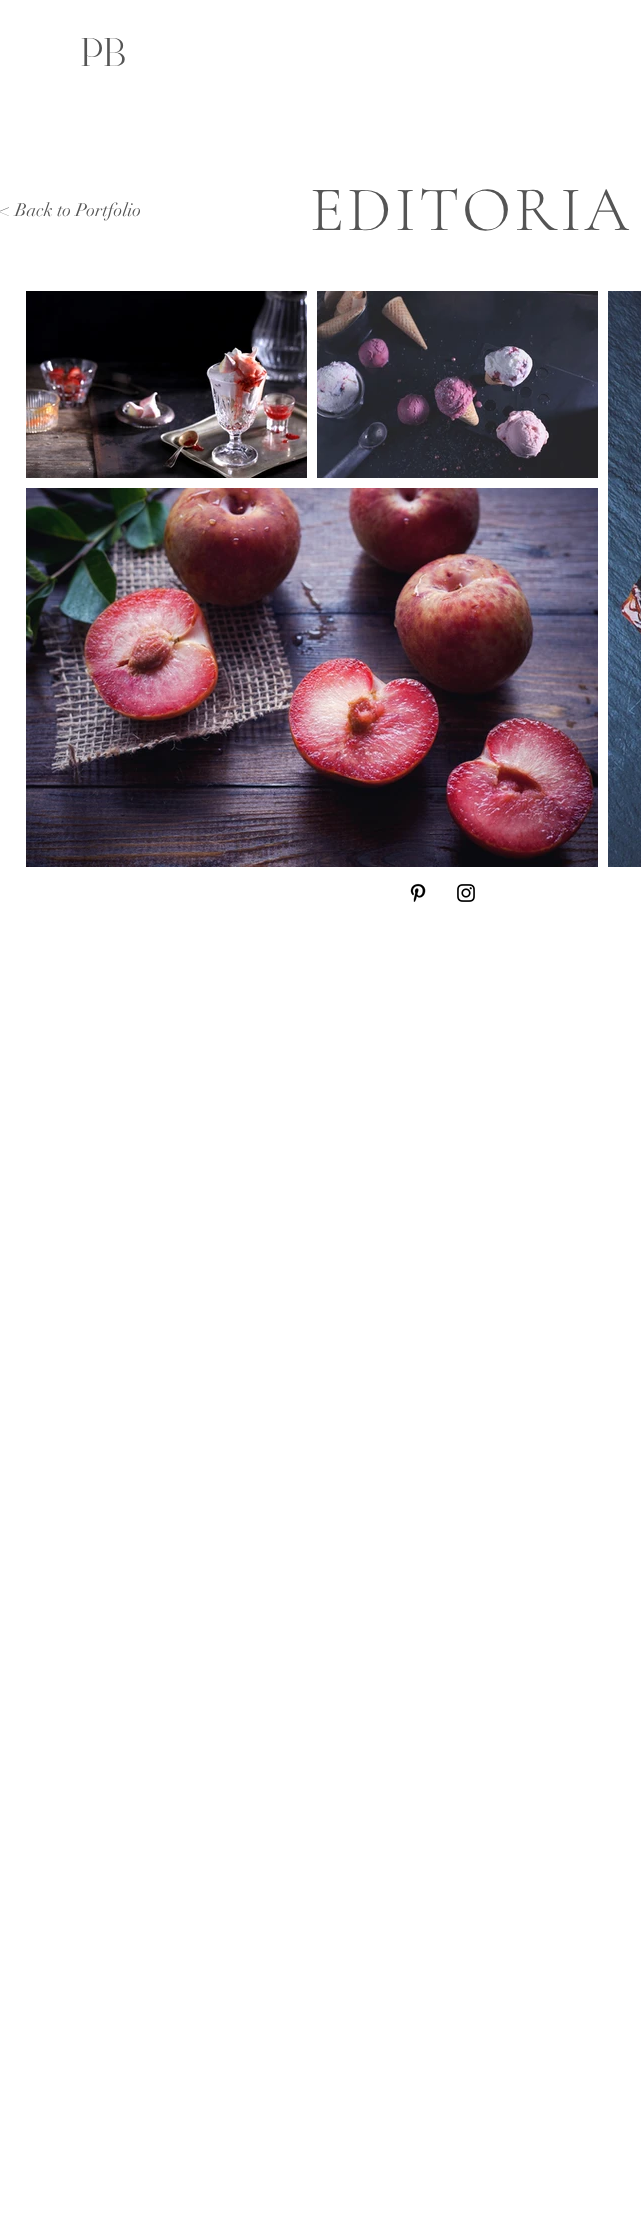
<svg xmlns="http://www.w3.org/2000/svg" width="641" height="2235">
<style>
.a{font:300 40px Fraunces;fill:#555}
.b{font:18px didot;fill:#555}
.c{font:300 64px Cormorant Garamond;letter-spacing:3.25px;fill:#555}
</style>
<rect width="100%" height="100%" fill="#fff"/>
<image href="1.png" x="26" y="291" width="281" height="187"/>
<image href="2.png" x="317" y="291" width="281" height="187"/>
<image href="3.png" x="608" y="291" width="33" height="576"/>
<image href="4.png" x="26" y="488" width="572" height="379"/>
<image href="5.png" x="410" y="883" width="16" height="19"/>
<image href="6.png" x="457" y="884" width="18" height="18"/>
<text class="a" x="80" y="66">PB</text>
<text class="b" x="0" y="216">&lt; Back to Portfolio</text>
<text class="c" x="310" y="230">EDITORIA</text>
</svg>
